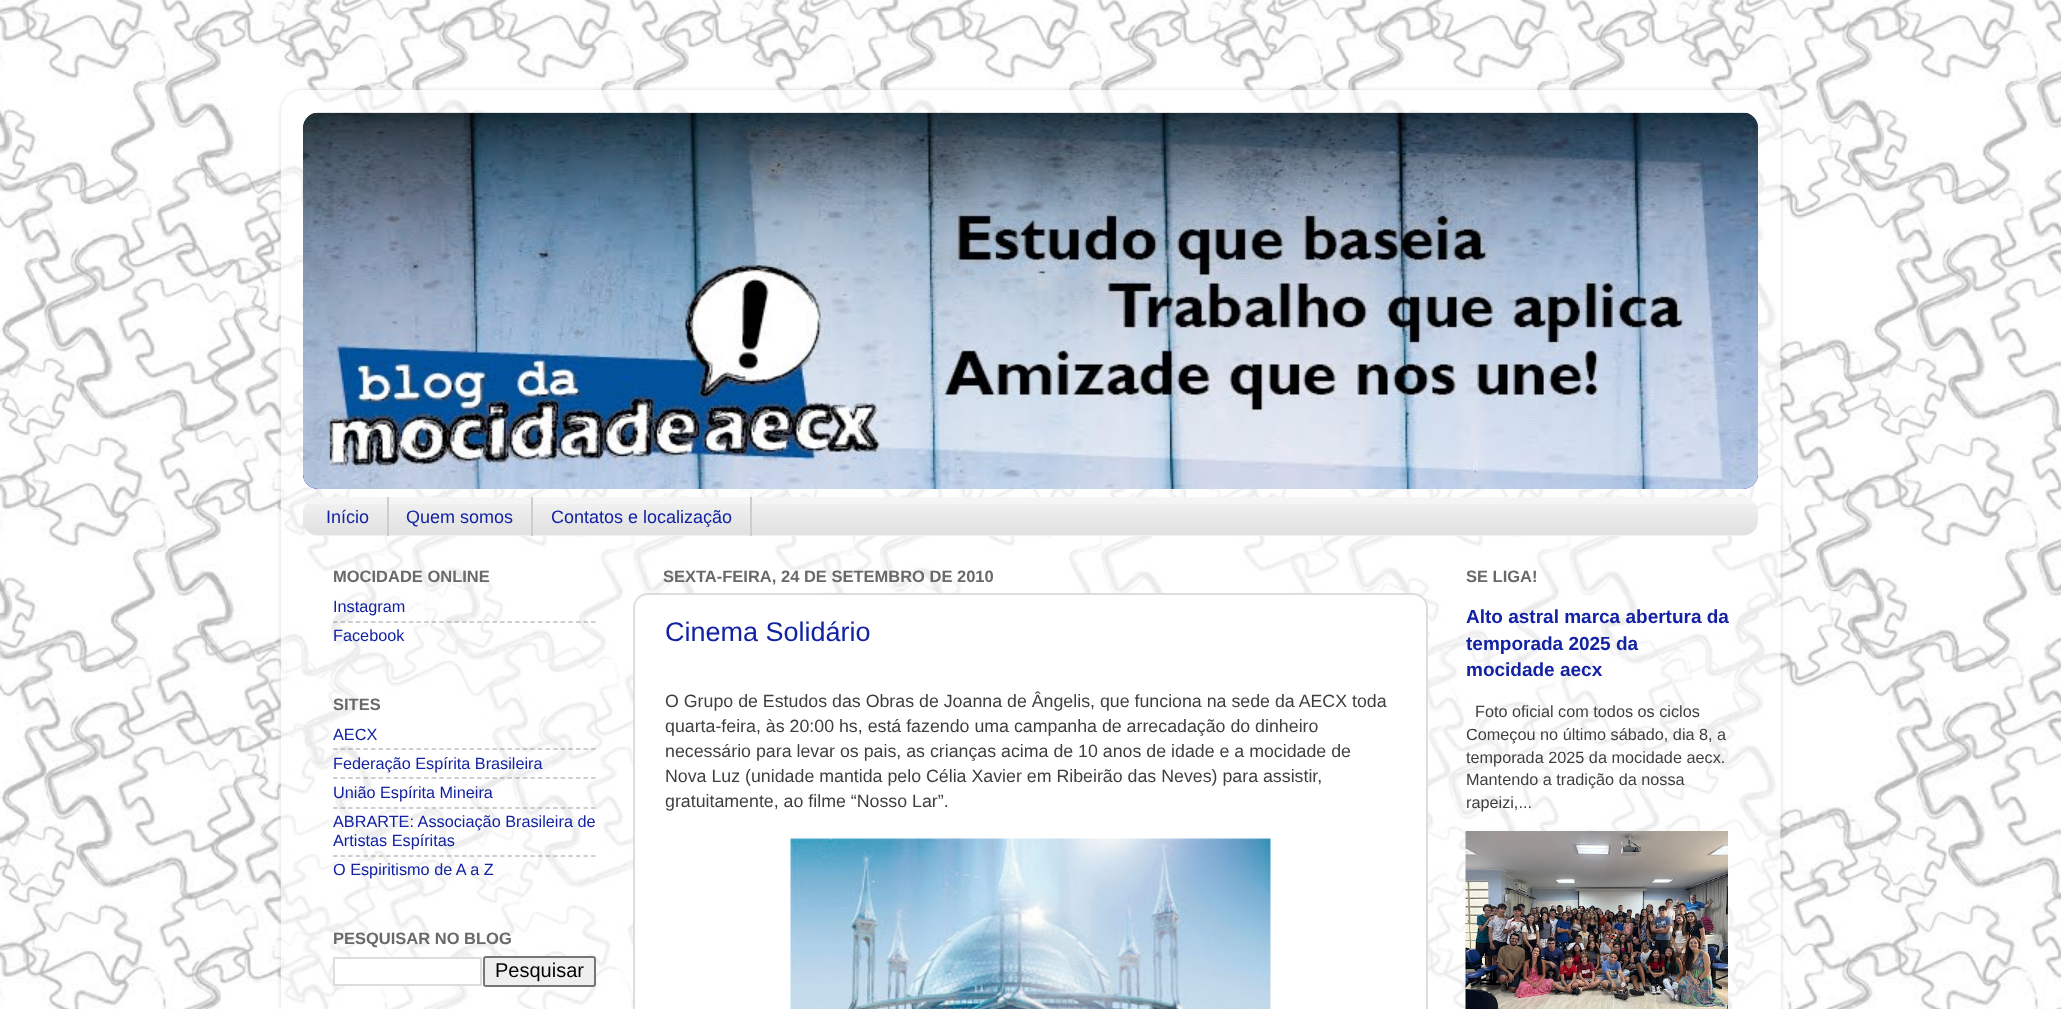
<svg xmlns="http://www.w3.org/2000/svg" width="2061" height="1009">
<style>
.a{font:18px Liberation Sans;fill:#1222a2}
.b{font:bold 16.5px Liberation Sans;fill:#696969}
.c{font:16.25px Liberation Sans;fill:#1222a2}
.d{font:20px Liberation Sans;fill:#000}
.e{font:27px Liberation Sans;fill:#1222a2}
.f{font:17.8px Liberation Sans;fill:#3f3f3f}
.g{font:bold 19px Liberation Sans;fill:#1222a2}
.h{font:16.25px Liberation Sans;fill:#3f3f3f}
</style>
<defs>
<clipPath id="clip1"><path d="M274 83h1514v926h-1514zm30 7h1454c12.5 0 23 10.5 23 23v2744c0 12.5-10.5 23-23 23h-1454c-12.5 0-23-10.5-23-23v-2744c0-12.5 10.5-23 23-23z" clip-rule="evenodd"/></clipPath>
</defs>
<rect width="100%" height="100%" fill="#fff"/>
<image href="1.png" x="0" y="0" width="2061" height="1009"/>
<g clip-path="url(#clip1)">
<rect fill="#00000026" filter="blur(2px)" x="281" y="90" width="1500" height="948" rx="23"/>
</g>
<image href="2.png" x="280" y="90" width="1501" height="919"/>
<rect fill="#1222a2" x="303" y="113" width="1455" height="376" rx="15"/>
<image href="3.png" x="303" y="113" width="1455" height="15"/>
<image href="4.png" x="303" y="112" width="1455" height="377"/>
<rect fill="#f5f5f5" x="303" y="497" width="1455" height="39" rx="15"/>
<image href="5.png" x="303" y="504" width="1455" height="32"/>
<path fill="#cdcdcd" d="M387 497h2v39H387z"/>
<path fill="#cdcdcd" d="M531 497h2v39H531z"/>
<path fill="#cdcdcd" d="M750 497h2v39H750z"/>
<path fill="none" stroke="#80808080" stroke-width="1.5" stroke-dasharray="4.5 3.09" d="M333 622h262.5"/>
<path fill="none" stroke="#80808080" stroke-width="1.5" stroke-dasharray="4.5 3.09" d="M333 749h262.5"/>
<path fill="none" stroke="#80808080" stroke-width="1.5" stroke-dasharray="4.5 3.09" d="M333 778h262.5"/>
<path fill="none" stroke="#80808080" stroke-width="1.5" stroke-dasharray="4.5 3.09" d="M333 808h262.5"/>
<path fill="none" stroke="#80808080" stroke-width="1.5" stroke-dasharray="4.5 3.09" d="M333 856h262.5"/>
<path fill="#fff" stroke="#ddd" stroke-width="2" d="M334 958h147v27H334z"/>
<rect fill="#efefef" stroke="#767676" stroke-width="2" x="484" y="957" width="111" height="29" rx="2"/>
<rect fill="#fff" stroke="#ddd" stroke-width="2" x="634" y="594" width="793" height="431" rx="14"/>
<image href="6.png" x="790" y="838" width="481" height="171"/>
<image href="7.png" x="1465" y="831" width="263" height="178"/>
<text class="a" x="326" y="523">Início</text>
<text class="a" x="406" y="523">Quem somos</text>
<text class="a" x="551" y="523">Contatos e localização</text>
<text class="b" x="333" y="582">MOCIDADE ONLINE</text>
<text class="c" x="333" y="612">Instagram</text>
<text class="c" x="333" y="641">Facebook</text>
<text class="b" x="333" y="710">SITES</text>
<text class="c" x="333" y="740">AECX</text>
<text class="c" x="333" y="769">Federação Espírita Brasileira</text>
<text class="c" x="333" y="798">União Espírita Mineira</text>
<text class="c" x="333" y="827">ABRARTE: Associação Brasileira de</text>
<text class="c" x="333" y="846">Artistas Espíritas</text>
<text class="c" x="333" y="875">O Espiritismo de A a Z</text>
<text class="b" x="333" y="944">PESQUISAR NO BLOG</text>
<text class="d" x="495" y="977">Pesquisar</text>
<text class="b" x="663" y="582">SEXTA-FEIRA, 24 DE SETEMBRO DE 2010</text>
<text class="e" x="665" y="641">Cinema Solidário</text>
<text class="f" x="665" y="707">O Grupo de Estudos das Obras de Joanna de Ângelis, que funciona na sede da AECX toda</text>
<text class="f" x="665" y="732">quarta-feira, às 20:00 hs, está fazendo uma campanha de arrecadação do dinheiro</text>
<text class="f" x="665" y="757">necessário para levar os pais, as crianças acima de 10 anos de idade e a mocidade de</text>
<text class="f" x="665" y="782">Nova Luz (unidade mantida pelo Célia Xavier em Ribeirão das Neves) para assistir,</text>
<text class="f" x="665" y="807">gratuitamente, ao filme “Nosso Lar”.</text>
<text class="b" x="1466" y="582">SE LIGA!</text>
<text class="g" x="1466" y="623">Alto astral marca abertura da</text>
<text class="g" x="1466" y="650">temporada 2025 da</text>
<text class="g" x="1466" y="676">mocidade aecx</text>
<text class="h" x="1475" y="717">Foto oficial com todos os ciclos</text>
<text class="h" x="1466" y="740">Começou no último sábado, dia 8, a</text>
<text class="h" x="1466" y="763">temporada 2025 da mocidade aecx.</text>
<text class="h" x="1466" y="785">Mantendo a tradição da nossa</text>
<text class="h" x="1466" y="808">rapeizi,...</text>
</svg>
